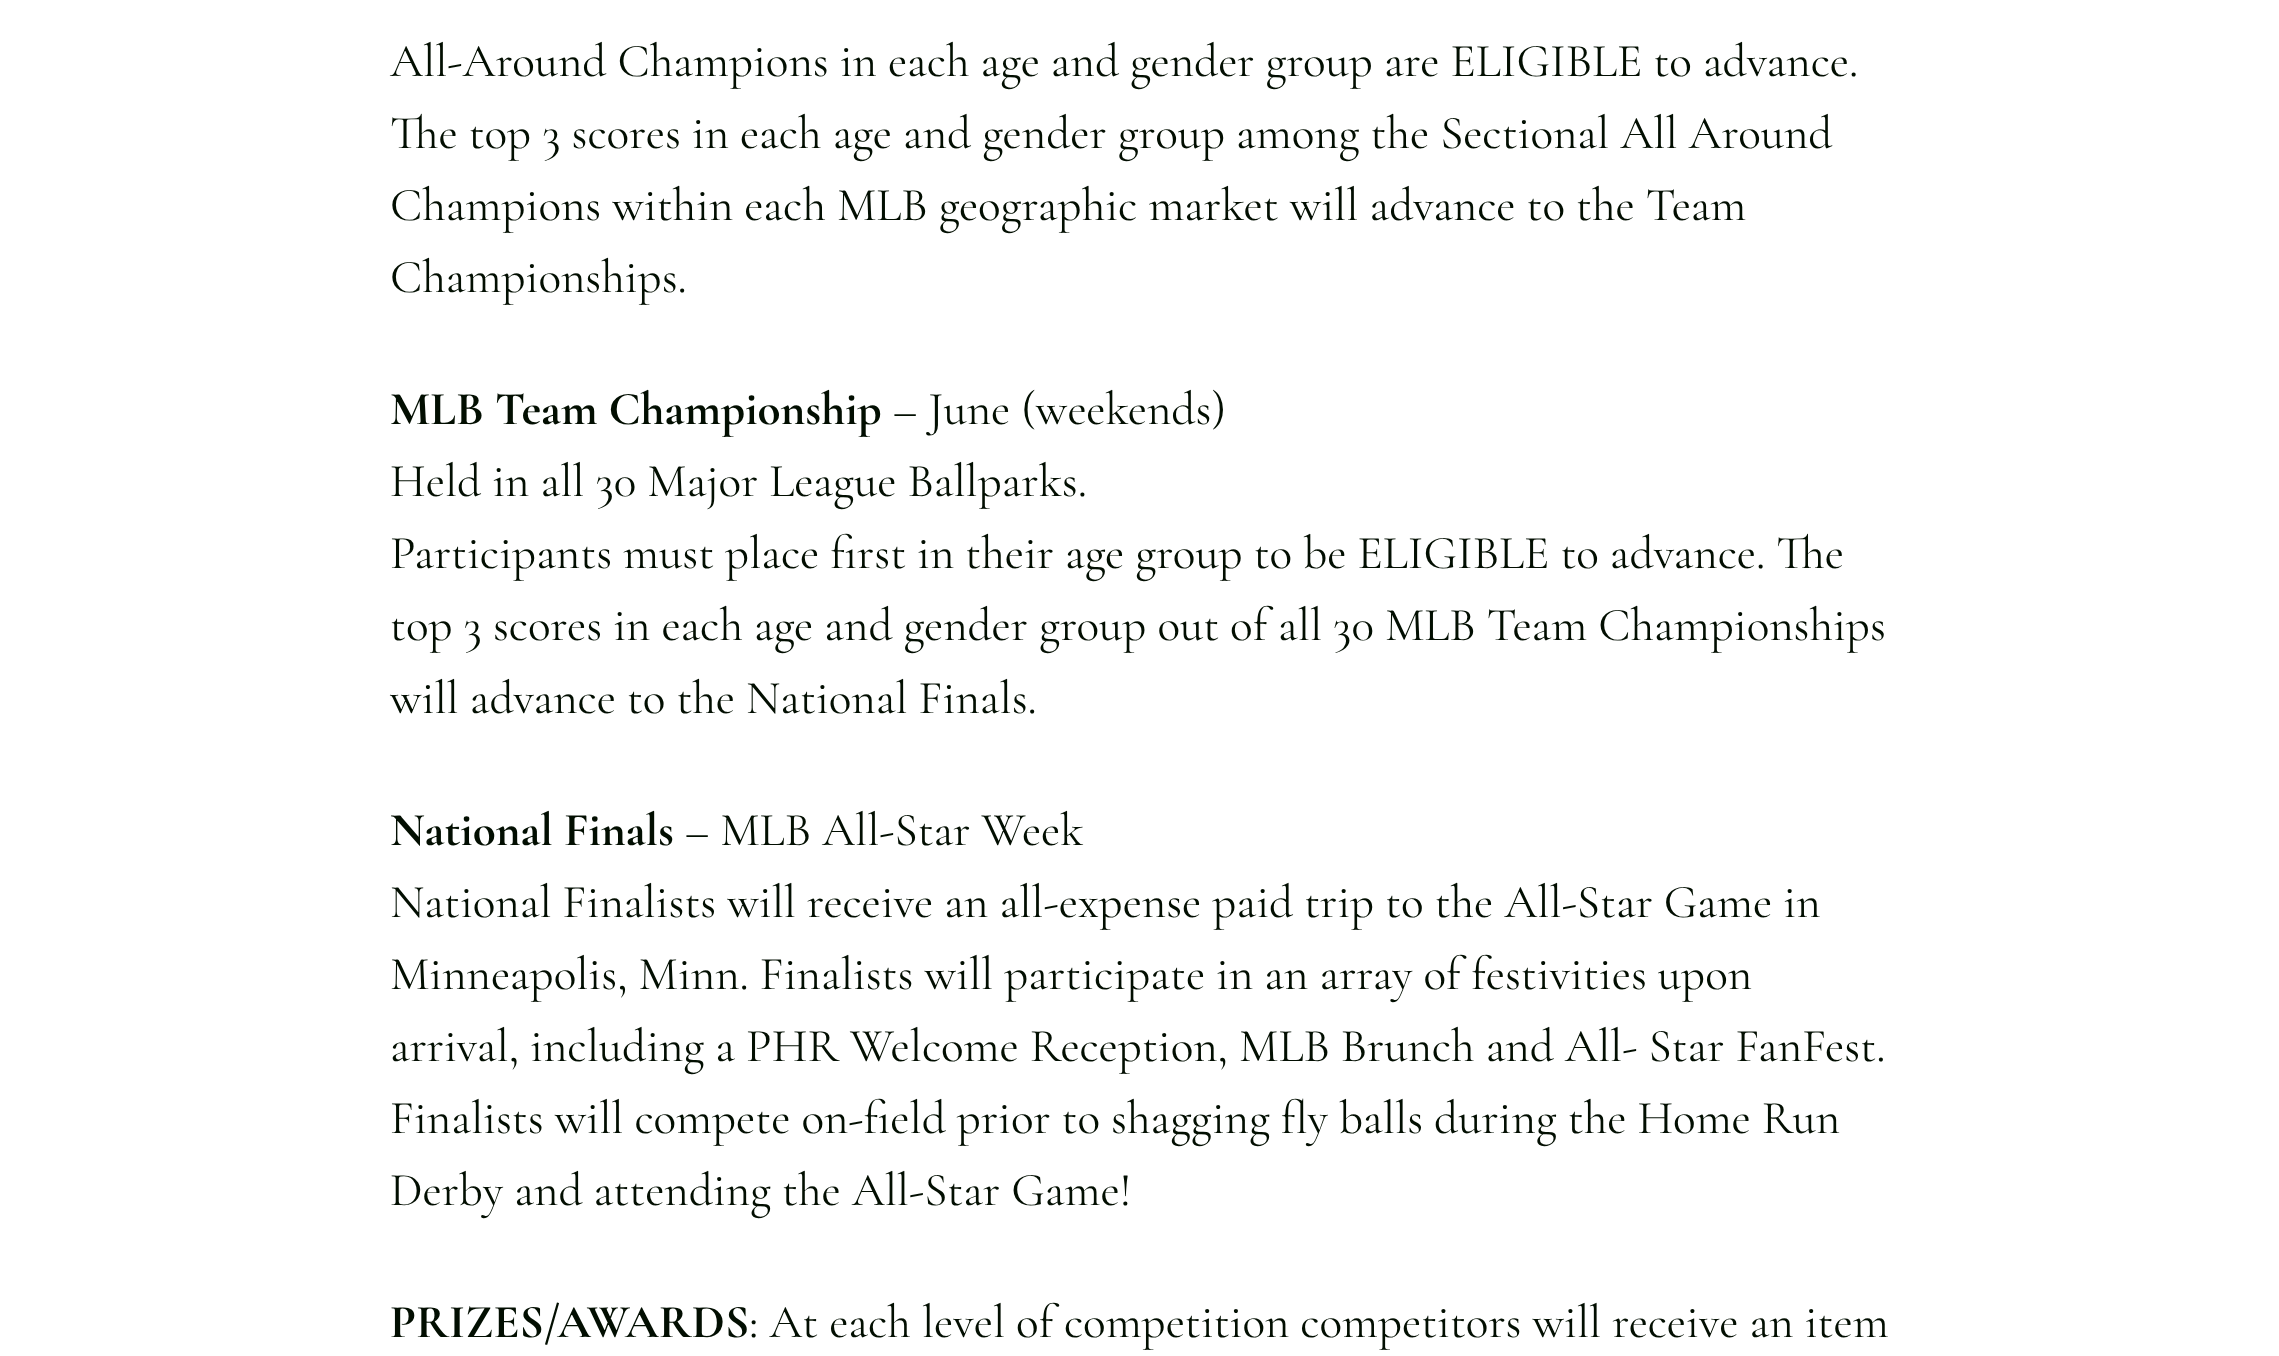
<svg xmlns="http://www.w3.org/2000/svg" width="2279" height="1356">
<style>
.a{font:47.1px Cormorant Garamond;fill:#020e01}
.b{font:bold 47.1px Cormorant Garamond;fill:#020e01}
</style>
<rect width="100%" height="100%" fill="#fff"/>
<text class="a" x="390" y="76">All-Around Champions in each age and gender group are ELIGIBLE to advance.</text>
<text class="a" x="390" y="148">The top 3 scores in each age and gender group among the Sectional All Around</text>
<text class="a" x="390" y="220">Champions within each MLB geographic market will advance to the Team</text>
<text class="a" x="390" y="292">Championships.</text>
<text class="b" x="390" y="424">MLB Team Championship</text>
<text class="a" x="893" y="424">– June (weekends)</text>
<text class="a" x="390" y="496">Held in all 30 Major League Ballparks.</text>
<text class="a" x="390" y="568">Participants must place first in their age group to be ELIGIBLE to advance. The</text>
<text class="a" x="390" y="640">top 3 scores in each age and gender group out of all 30 MLB Team Championships</text>
<text class="a" x="390" y="713">will advance to the National Finals.</text>
<text class="b" x="390" y="845">National Finals</text>
<text class="a" x="685" y="845">– MLB All-Star Week</text>
<text class="a" x="390" y="917">National Finalists will receive an all-expense paid trip to the All-Star Game in</text>
<text class="a" x="390" y="989">Minneapolis, Minn. Finalists will participate in an array of festivities upon</text>
<text class="a" x="390" y="1061">arrival, including a PHR Welcome Reception, MLB Brunch and All- Star FanFest.</text>
<text class="a" x="390" y="1133">Finalists will compete on-field prior to shagging fly balls during the Home Run</text>
<text class="a" x="390" y="1205">Derby and attending the All-Star Game!</text>
<text class="b" x="390" y="1337">PRIZES/AWARDS</text>
<text class="a" x="749" y="1337">: At each level of competition competitors will receive an item</text>
</svg>
